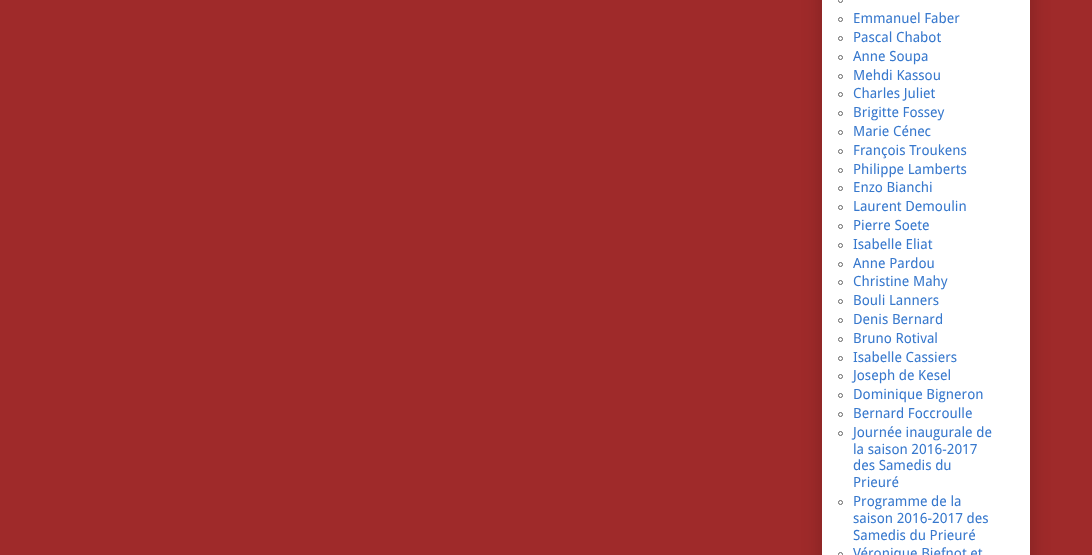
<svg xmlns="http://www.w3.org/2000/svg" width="1092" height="555">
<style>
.a{font:14px Droid Sans;fill:#3778cd}
</style>
<rect width="100%" height="100%" fill="#9f2a2a"/>
<rect fill="#00000033" filter="blur(10px)" x="822" y="-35" width="208" height="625" rx="5"/>
<path fill="#fff" d="M822 0h208v555H822z"/>
<circle fill="none" stroke="#666" cx="840.5" cy="0.5" r="2"/>
<circle fill="none" stroke="#666" cx="840.5" cy="19.5" r="2"/>
<circle fill="none" stroke="#666" cx="840.5" cy="38.5" r="2"/>
<circle fill="none" stroke="#666" cx="840.5" cy="57.5" r="2"/>
<circle fill="none" stroke="#666" cx="840.5" cy="76.5" r="2"/>
<circle fill="none" stroke="#666" cx="840.5" cy="94.5" r="2"/>
<circle fill="none" stroke="#666" cx="840.5" cy="113.5" r="2"/>
<circle fill="none" stroke="#666" cx="840.5" cy="132.5" r="2"/>
<circle fill="none" stroke="#666" cx="840.5" cy="151.5" r="2"/>
<circle fill="none" stroke="#666" cx="840.5" cy="170.5" r="2"/>
<circle fill="none" stroke="#666" cx="840.5" cy="188.5" r="2"/>
<circle fill="none" stroke="#666" cx="840.5" cy="207.5" r="2"/>
<circle fill="none" stroke="#666" cx="840.5" cy="226.5" r="2"/>
<circle fill="none" stroke="#666" cx="840.5" cy="245.5" r="2"/>
<circle fill="none" stroke="#666" cx="840.5" cy="264.5" r="2"/>
<circle fill="none" stroke="#666" cx="840.5" cy="282.5" r="2"/>
<circle fill="none" stroke="#666" cx="840.5" cy="301.5" r="2"/>
<circle fill="none" stroke="#666" cx="840.5" cy="320.5" r="2"/>
<circle fill="none" stroke="#666" cx="840.5" cy="339.5" r="2"/>
<circle fill="none" stroke="#666" cx="840.5" cy="358.5" r="2"/>
<circle fill="none" stroke="#666" cx="840.5" cy="376.5" r="2"/>
<circle fill="none" stroke="#666" cx="840.5" cy="395.5" r="2"/>
<circle fill="none" stroke="#666" cx="840.5" cy="414.5" r="2"/>
<circle fill="none" stroke="#666" cx="840.5" cy="433.5" r="2"/>
<circle fill="none" stroke="#666" cx="840.5" cy="502.5" r="2"/>
<circle fill="none" stroke="#666" cx="840.5" cy="554.5" r="2"/>
<text class="a" x="853" y="23">Emmanuel Faber</text>
<text class="a" x="853" y="42">Pascal Chabot</text>
<text class="a" x="853" y="61">Anne Soupa</text>
<text class="a" x="853" y="80">Mehdi Kassou</text>
<text class="a" x="853" y="98">Charles Juliet</text>
<text class="a" x="853" y="117">Brigitte Fossey</text>
<text class="a" x="853" y="136">Marie Cénec</text>
<text class="a" x="853" y="155">François Troukens</text>
<text class="a" x="853" y="174">Philippe Lamberts</text>
<text class="a" x="853" y="192">Enzo Bianchi</text>
<text class="a" x="853" y="211">Laurent Demoulin</text>
<text class="a" x="853" y="230">Pierre Soete</text>
<text class="a" x="853" y="249">Isabelle Eliat</text>
<text class="a" x="853" y="268">Anne Pardou</text>
<text class="a" x="853" y="286">Christine Mahy</text>
<text class="a" x="853" y="305">Bouli Lanners</text>
<text class="a" x="853" y="324">Denis Bernard</text>
<text class="a" x="853" y="343">Bruno Rotival</text>
<text class="a" x="853" y="362">Isabelle Cassiers</text>
<text class="a" x="853" y="380">Joseph de Kesel</text>
<text class="a" x="853" y="399">Dominique Bigneron</text>
<text class="a" x="853" y="418">Bernard Foccroulle</text>
<text class="a" x="853" y="437">Journée inaugurale de</text>
<text class="a" x="853" y="454">la saison 2016-2017</text>
<text class="a" x="853" y="470">des Samedis du</text>
<text class="a" x="853" y="487">Prieuré</text>
<text class="a" x="853" y="506">Programme de la</text>
<text class="a" x="853" y="523">saison 2016-2017 des</text>
<text class="a" x="853" y="540">Samedis du Prieuré</text>
<text class="a" x="853" y="558">Véronique Biefnot et</text>
</svg>
